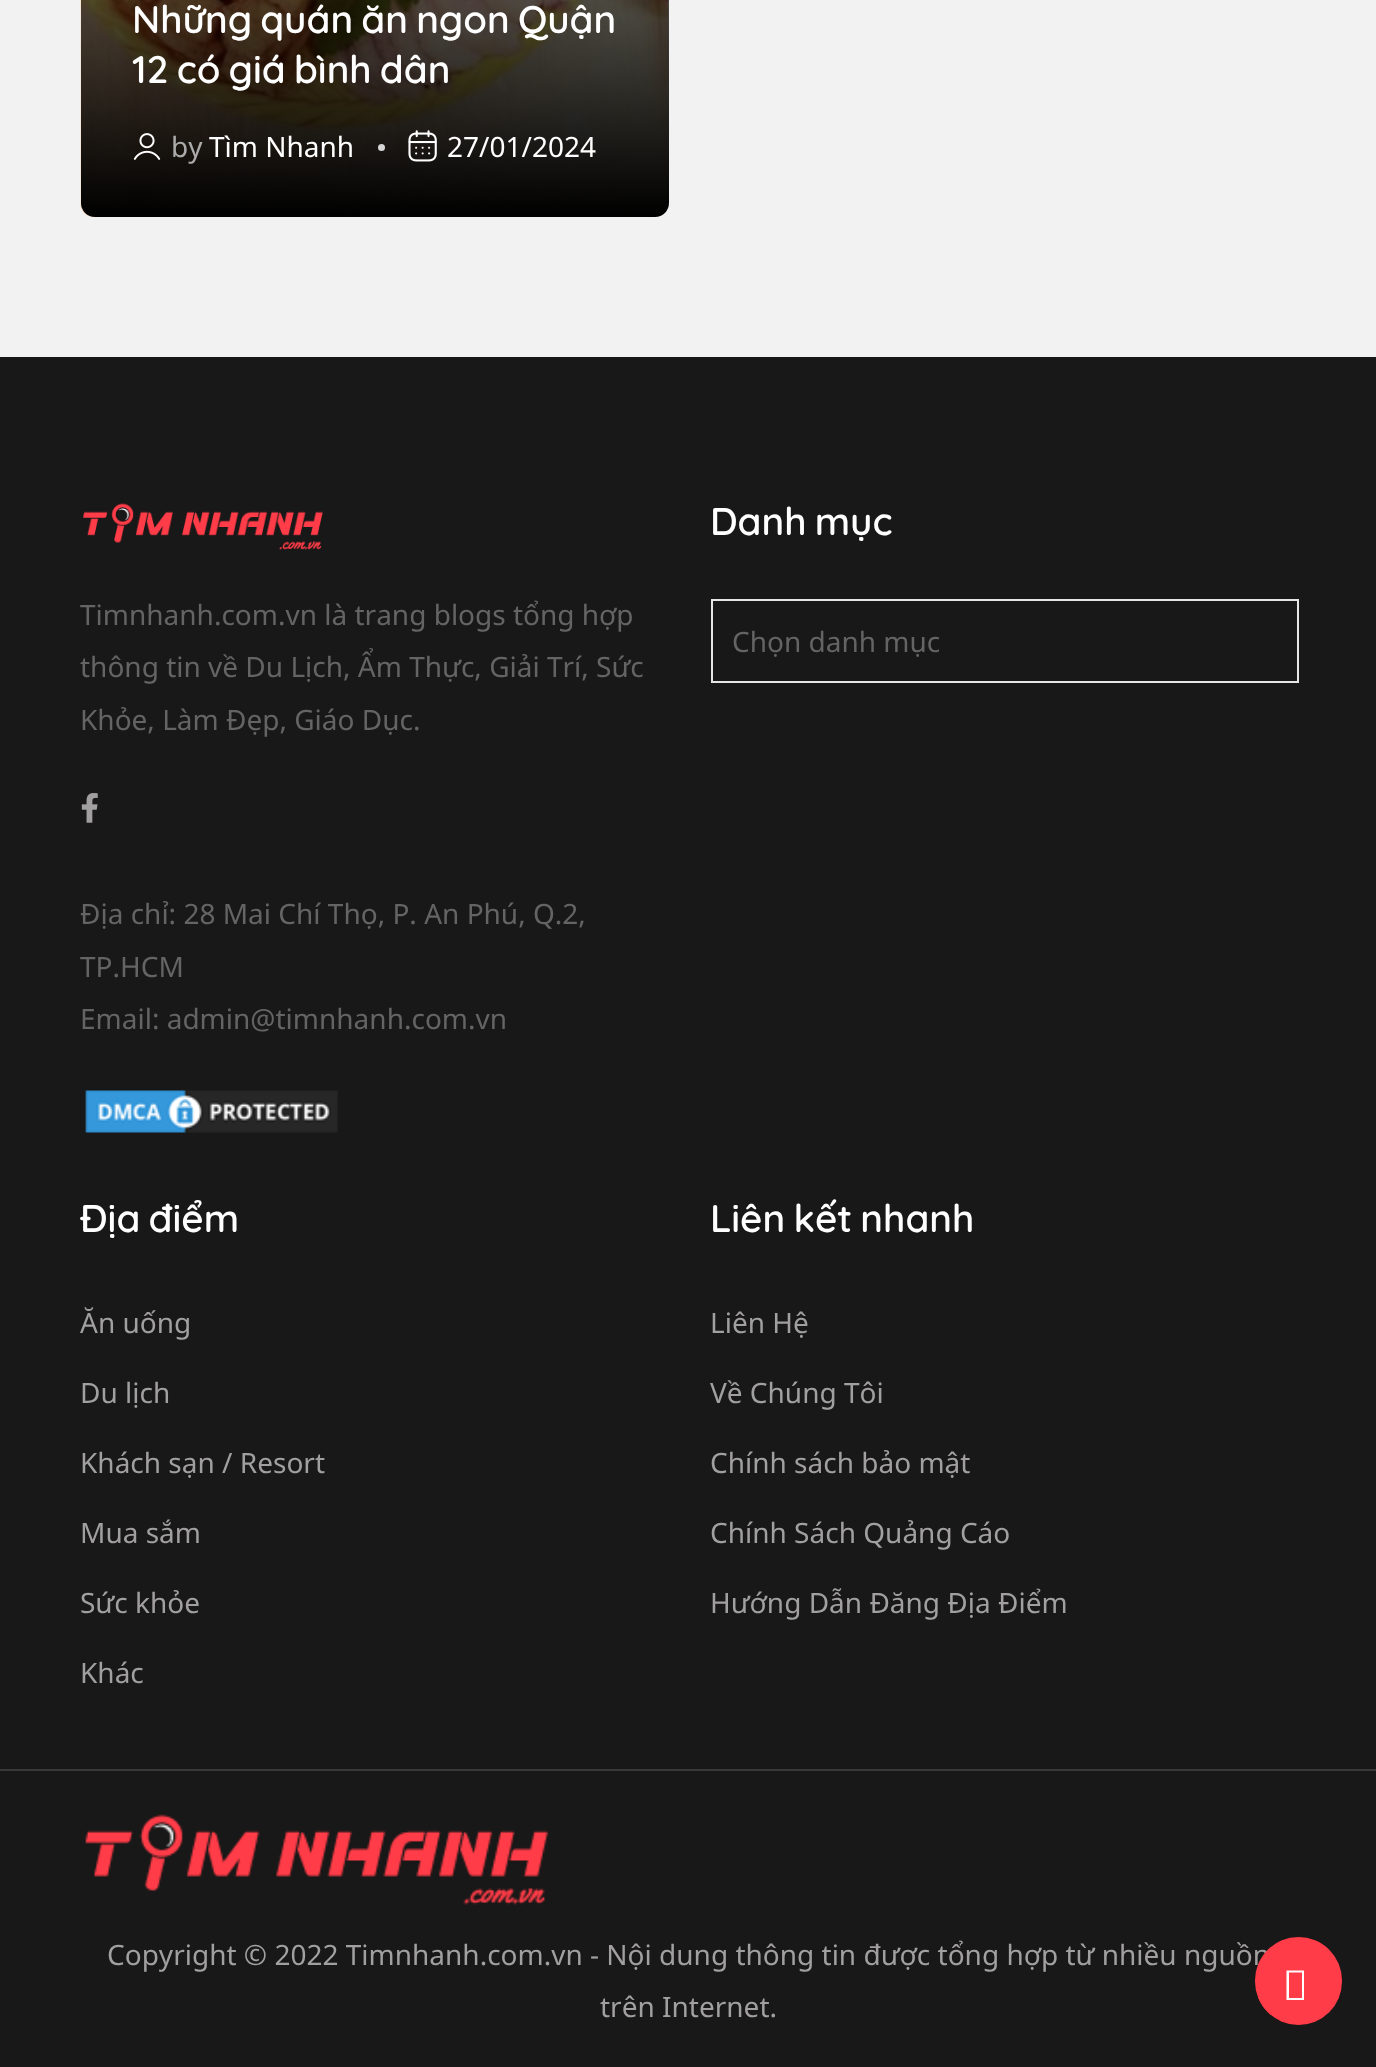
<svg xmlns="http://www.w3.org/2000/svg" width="1376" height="2067">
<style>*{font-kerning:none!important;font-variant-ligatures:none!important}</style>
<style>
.a{font:600 38.5px Quicksand;fill:#fff}
.b{font:28px Noto Sans;fill:#ababab}
.c{font:28px Noto Sans;fill:#fff}
.d{font:28px Noto Sans;fill:#646464}
.e{font:28px Noto Sans;fill:#a19f9f}
</style>
<defs>
<linearGradient id="g1" gradientUnits="userSpaceOnUse" x1="375" y1="217" x2="375" y2="-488"><stop offset="0" stop-color="#000"/><stop offset="1" stop-color="#000" stop-opacity="0"/></linearGradient>
</defs>
<rect width="100%" height="100%" fill="#f2f2f2"/>
<image href="1.png" x="80" y="0" width="589" height="218"/>
<rect fill="url(#g1)" x="81" y="-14" width="588" height="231" rx="14"/>
<image href="2.png" x="133" y="133" width="28" height="27"/>
<circle fill="#d6d6d6" cx="381.5" cy="147.5" r="3.5"/>
<image href="3.png" x="408" y="130" width="29" height="32"/>
<path fill="#181818" d="M0 357h1376v1710H0z"/>
<path fill="#383838" d="M0 1769h1376v2H0z"/>
<path fill="none" stroke="#e6e6e6" stroke-width="2" d="M712 600h586v82H712z"/>
<image href="4.png" x="83" y="503" width="240" height="47"/>
<image href="5.png" x="81" y="793" width="17" height="30"/>
<image href="6.png" x="85" y="1090" width="253" height="43"/>
<image href="7.png" x="85" y="1814" width="464" height="91"/>
<text class="a" x="132" y="33" word-spacing="-2.5">Những quán ăn ngon Quận</text>
<text class="a" x="132" y="83" word-spacing="-2.5">12 có giá bình dân</text>
<text class="b" x="171" y="157">by</text>
<text class="c" x="209" y="157">Tìm Nhanh</text>
<text class="c" x="447" y="157">27/01/2024</text>
<text class="a" x="710" y="535" word-spacing="-2.5">Danh mục</text>
<text class="d" x="732" y="652">Chọn danh mục</text>
<text class="d" x="80" y="625">Timnhanh.com.vn là trang blogs tổng hợp</text>
<text class="d" x="80" y="677">thông tin về Du Lịch, Ẩm Thực, Giải Trí, Sức</text>
<text class="d" x="80" y="730">Khỏe, Làm Đẹp, Giáo Dục.</text>
<text class="d" x="80" y="924">Địa chỉ: 28 Mai Chí Thọ, P. An Phú, Q.2,</text>
<text class="d" x="80" y="977">TP.HCM</text>
<text class="d" x="80" y="1029">Email: admin@timnhanh.com.vn</text>
<text class="a" x="80" y="1232" word-spacing="-2.5">Địa điểm</text>
<text class="e" x="80" y="1333">Ăn uống</text>
<text class="e" x="80" y="1403">Du lịch</text>
<text class="e" x="80" y="1473">Khách sạn / Resort</text>
<text class="e" x="80" y="1543">Mua sắm</text>
<text class="e" x="80" y="1613">Sức khỏe</text>
<text class="e" x="80" y="1683">Khác</text>
<text class="a" x="710" y="1232" word-spacing="-2.5">Liên kết nhanh</text>
<text class="e" x="710" y="1333">Liên Hệ</text>
<text class="e" x="710" y="1403">Về Chúng Tôi</text>
<text class="e" x="710" y="1473">Chính sách bảo mật</text>
<text class="e" x="710" y="1543">Chính Sách Quảng Cáo</text>
<text class="e" x="710" y="1613">Hướng Dẫn Đăng Địa Điểm</text>
<text class="e" x="107" y="1965">Copyright © 2022 Timnhanh.com.vn - Nội dung thông tin được tổng hợp từ nhiều nguồn</text>
<text class="e" x="600" y="2017">trên Internet.</text>
<rect fill="#ff3c48" x="1255" y="1937" width="87" height="88" rx="43.5"/>
<path fill="#fff" d="M1286.5 2000v-29.5h17.5v29.5zm2.5-2h13v-25.5h-13z"/>
</svg>
